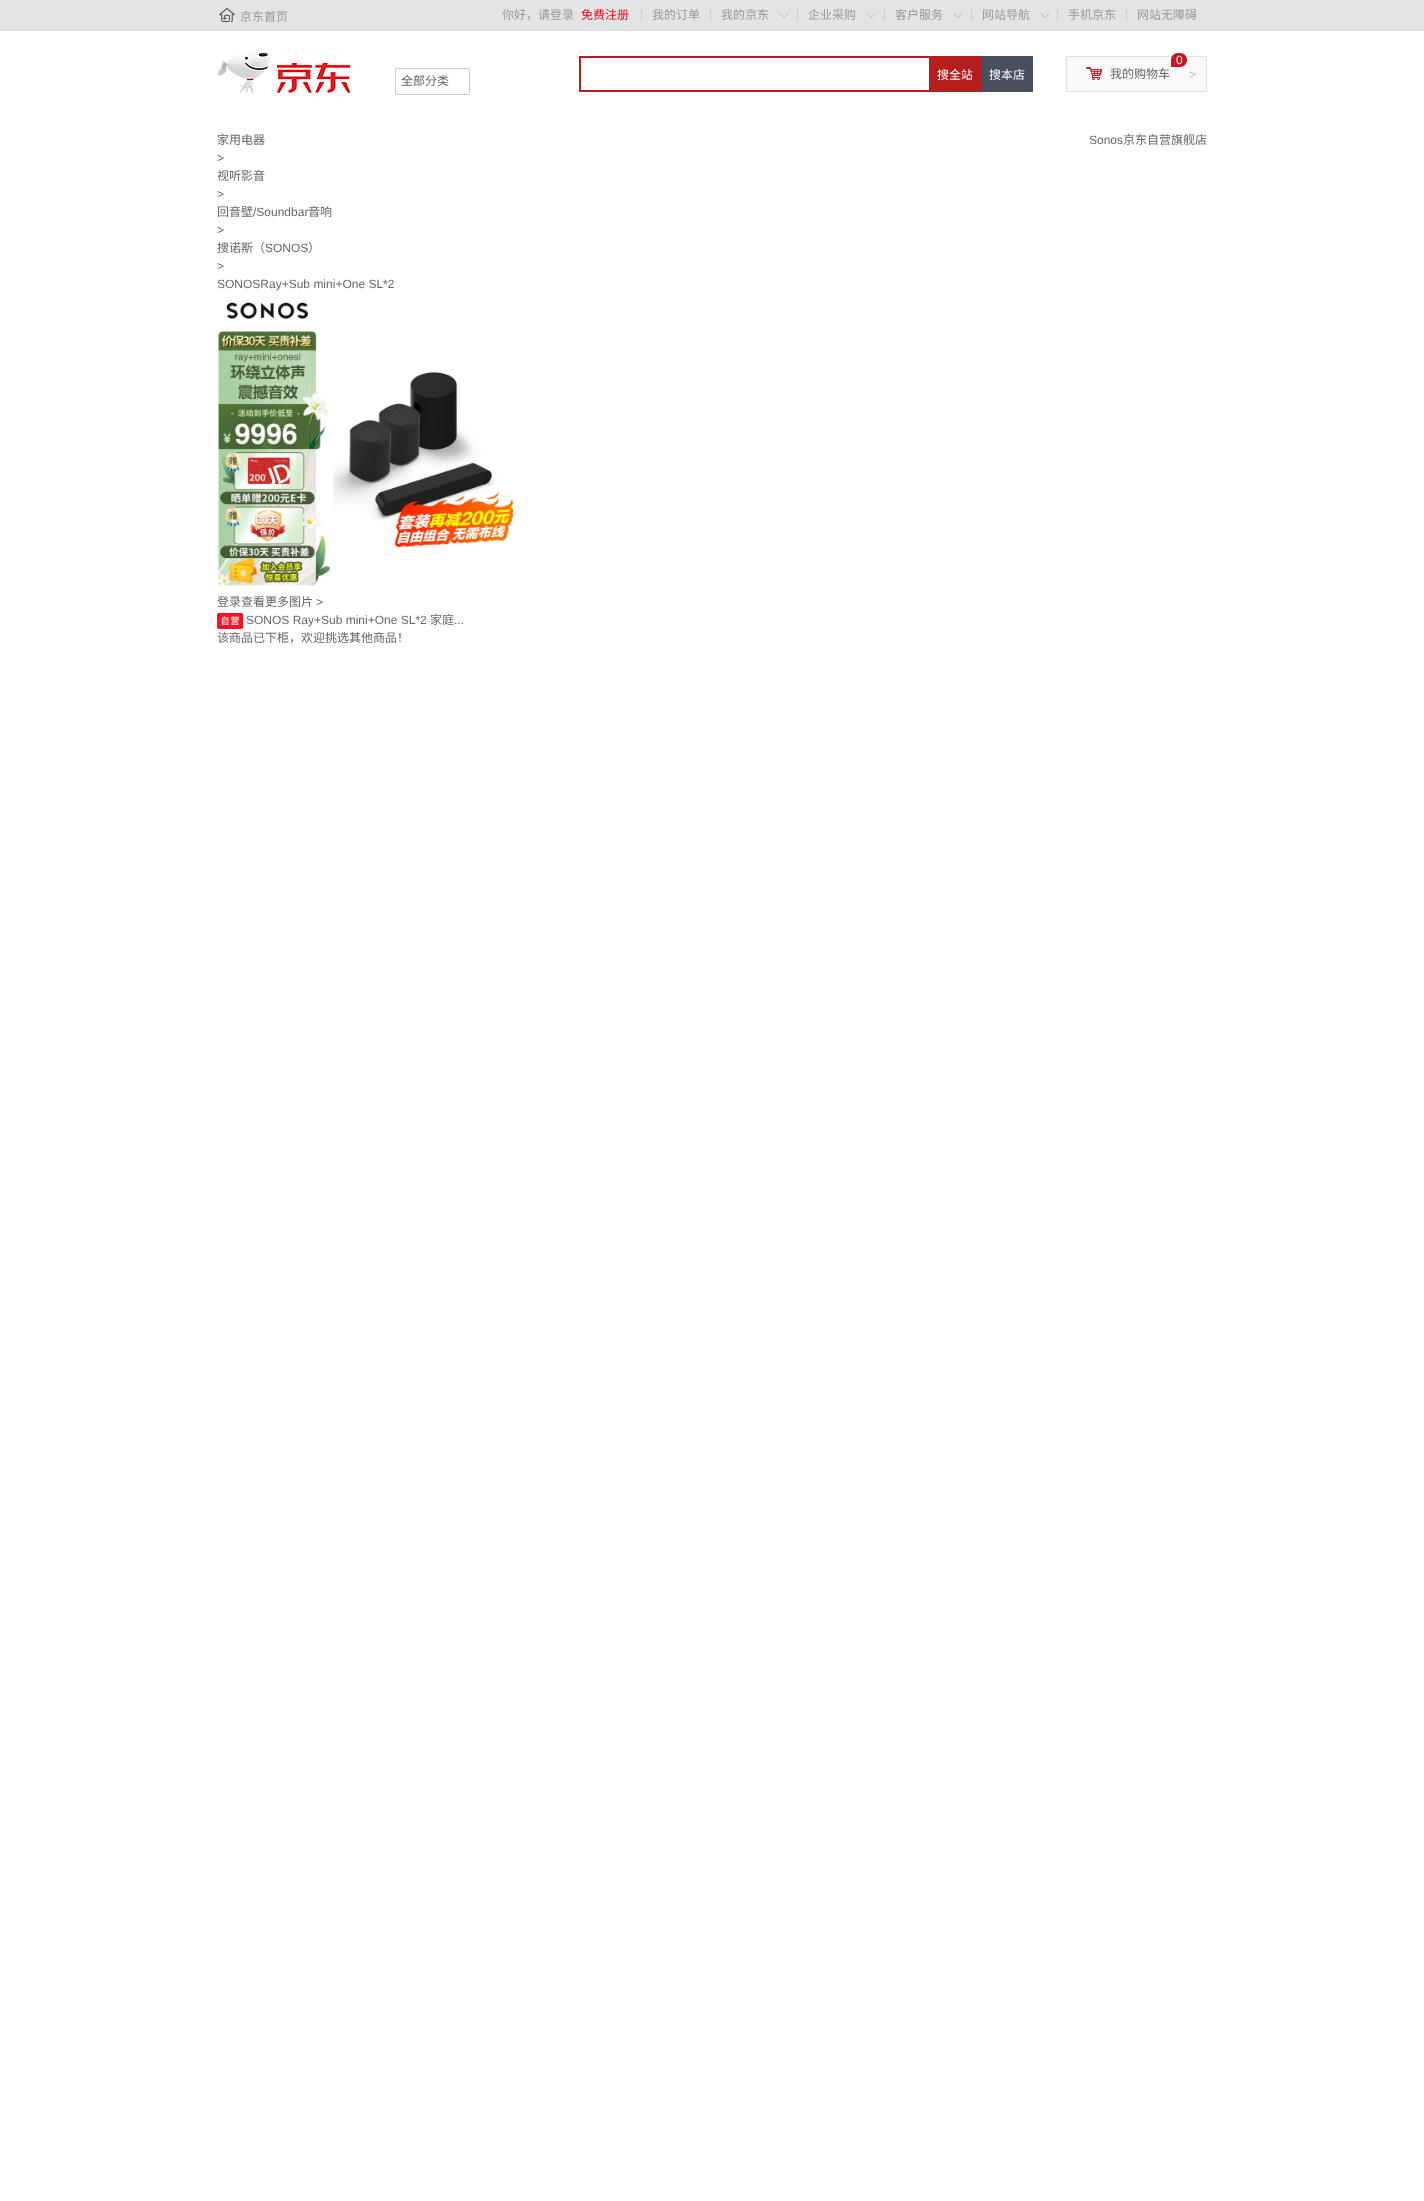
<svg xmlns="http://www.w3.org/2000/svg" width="1424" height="2201">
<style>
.a{font:12px Noto Sans CJK SC;fill:#999}
.b{font:12px Noto Sans CJK SC;fill:#f30213}
.c{font:12px Noto Sans CJK SC;fill:#666}
.d{font:12px Noto Sans CJK SC;fill:#fff}
.e{font:12px Liberation Sans;fill:#fff}
.f{font:13px Liberation Serif;fill:#999}
.g{font:12px Liberation Sans;fill:#666}
</style>
<rect width="100%" height="100%" fill="#fff"/>
<path fill="#e3e4e5" d="M0 0h1424v30H0z"/>
<path fill="#ddd" d="M0 30h1424v1H0z"/>
<image href="1.png" x="219" y="8" width="16" height="15"/>
<path fill="#ccc" d="M641 9h1v12H641z"/>
<path fill="#ccc" d="M710 9h1v12H710z"/>
<image href="2.png" x="779" y="13" width="10" height="5"/>
<path fill="#ccc" d="M797 9h1v12H797z"/>
<image href="2.png" x="866" y="13" width="10" height="5"/>
<path fill="#ccc" d="M884 9h1v12H884z"/>
<image href="2.png" x="953" y="13" width="10" height="5"/>
<path fill="#ccc" d="M971 9h1v12H971z"/>
<image href="2.png" x="1040" y="13" width="10" height="5"/>
<path fill="#ccc" d="M1057 9h1v12H1057z"/>
<path fill="#ccc" d="M1126 9h1v12H1126z"/>
<image href="3.png" x="217" y="51" width="134" height="42"/>
<path fill="none" stroke="#ccc" d="M395.5 68.5h74v26H395.5z"/>
<path fill="#b61d1d" d="M579 56h350v2H579z"/>
<path fill="#b61d1d" d="M579 90h350v2H579z"/>
<path fill="#b61d1d" d="M579 56h2v36H579z"/>
<path fill="#b61d1d" d="M929 56h52v36H929z"/>
<path fill="#474e5c" d="M981 56h52v36H981z"/>
<path fill="#f9f9f9" stroke="#dfdfdf" d="M1066.5 56.5h140v35H1066.5z"/>
<path fill="#c81623" d="M1178 53h2c4 0 7 3 7 7c0 4-3 7-7 7h-9v-7c0-4 3-7 7-7z"/>
<image href="4.png" x="1086" y="67" width="16" height="13"/>
<image href="5.png" x="217" y="302" width="297" height="285"/>
<image href="6.png" x="217" y="613" width="26" height="16"/>
<text class="a" x="240" y="21">京东首页</text>
<text class="a" x="502" y="19">你好，请登录</text>
<text class="b" x="581" y="19">免费注册</text>
<text class="a" x="652" y="19">我的订单</text>
<text class="a" x="721" y="19">我的京东</text>
<text class="a" x="808" y="19">企业采购</text>
<text class="a" x="895" y="19">客户服务</text>
<text class="a" x="982" y="19">网站导航</text>
<text class="a" x="1068" y="19">手机京东</text>
<text class="a" x="1137" y="19">网站无障碍</text>
<text class="c" x="401" y="85">全部分类</text>
<text class="d" x="937" y="79">搜全站</text>
<text class="d" x="989" y="79">搜本店</text>
<text class="e" x="1176" y="64">0</text>
<text class="c" x="1110" y="78">我的购物车</text>
<text class="f" x="1189" y="79">&gt;</text>
<text class="c" x="217" y="144">家用电器</text>
<text class="g" x="217" y="162">&gt;</text>
<text class="c" x="217" y="180">视听影音</text>
<text class="g" x="217" y="198">&gt;</text>
<text class="c" x="217" y="216">回音壁</text>
<text class="g" x="253" y="216">/Soundbar</text>
<text class="c" x="308" y="216">音响</text>
<text class="g" x="217" y="234">&gt;</text>
<text class="c" x="217" y="252">搜诺斯（</text>
<text class="g" x="265" y="252">SONOS</text>
<text class="c" x="308" y="252">）</text>
<text class="g" x="217" y="270">&gt;</text>
<text class="g" x="217" y="288">SONOSRay+Sub mini+One SL*2</text>
<text class="g" x="1089" y="144">Sonos</text>
<text class="c" x="1123" y="144">京东自营旗舰店</text>
<text class="c" x="217" y="606">登录查看更多图片</text>
<text class="g" x="316" y="606">&gt;</text>
<text class="g" x="246" y="624">SONOS Ray+Sub mini+One SL*2</text>
<text class="c" x="430" y="624">家庭</text>
<text class="g" x="454" y="624">...</text>
<text class="c" x="217" y="642">该商品已下柜，欢迎挑选其他商品！</text>
</svg>
